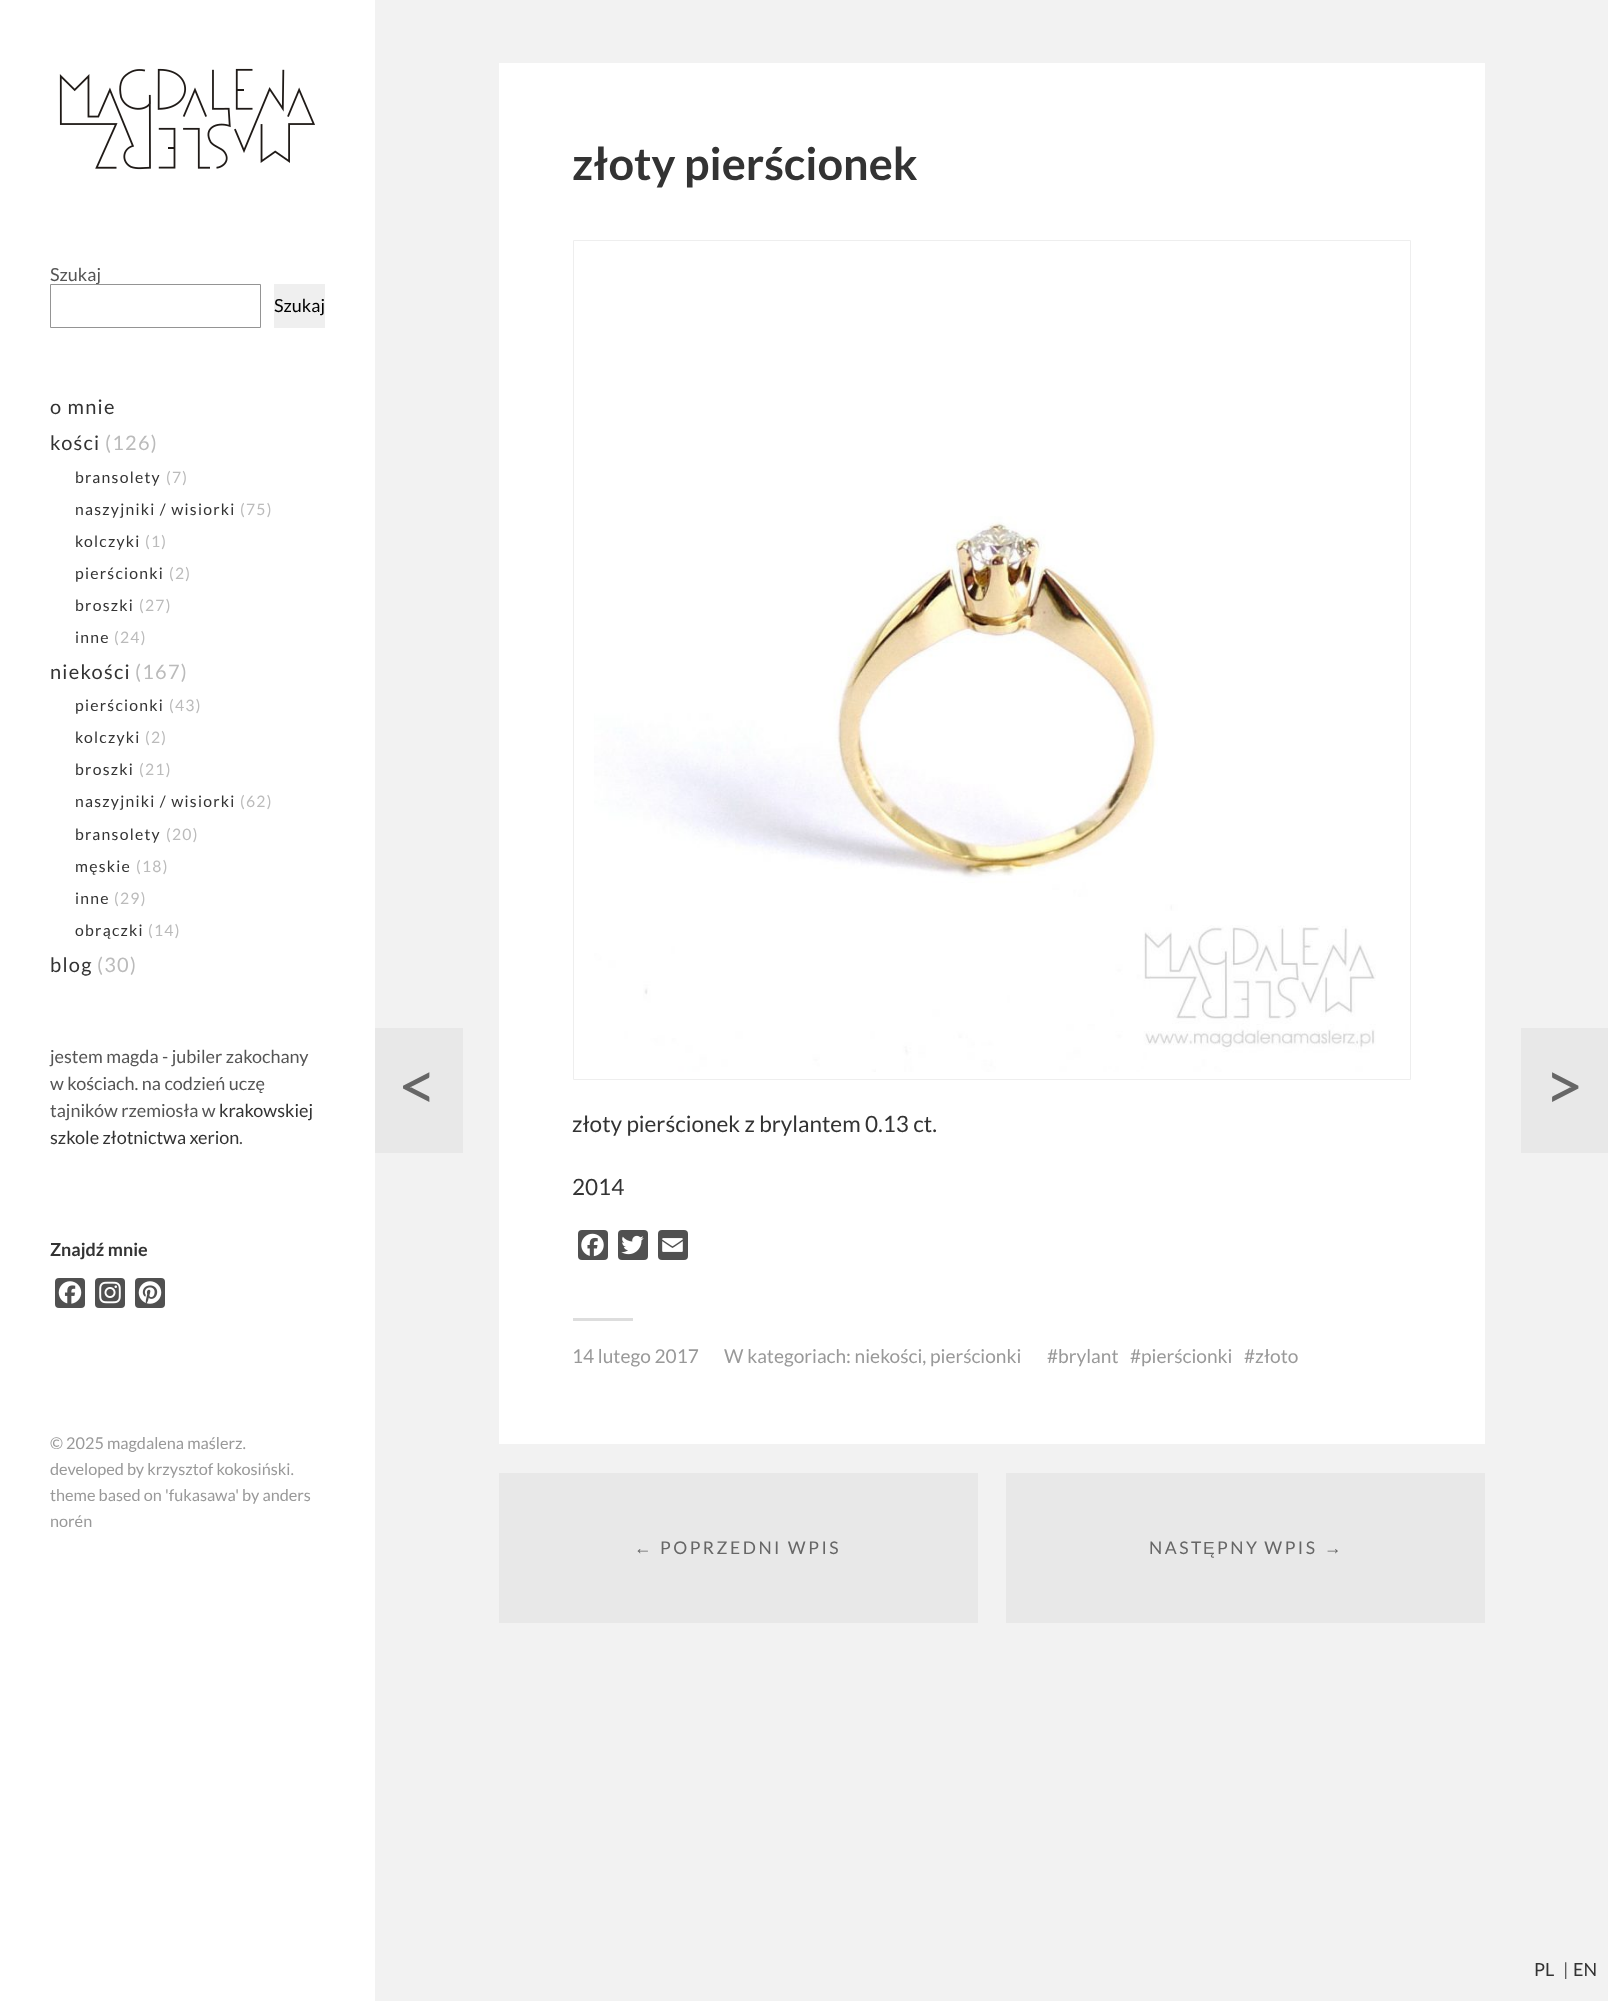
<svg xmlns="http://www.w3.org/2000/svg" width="1608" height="2001">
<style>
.a{font:bold 45px Lato;fill:#333}
.b{font:22.5px Lato;fill:#333}
.c{font:19.1px Lato;fill:#999}
.d{font:68px Lato;letter-spacing:2.5px;fill:#666}
.e{font:17.5px Liberation Sans;letter-spacing:2.5px;fill:#666}
.f{font:17.5px Lato;letter-spacing:2.5px;fill:#666}
.g{font:18px Lato;fill:#555}
.h{font:18px Lato;fill:#000}
.i{font:20px Lato;letter-spacing:1.25px;fill:#333}
.j{font:20px Lato;letter-spacing:1.25px;fill:#bbb}
.k{font:15.75px Lato;letter-spacing:1.25px;fill:#333}
.l{font:15.75px Lato;letter-spacing:1.25px;fill:#bbb}
.m{font:18px Lato;fill:#333}
.n{font:bold 18px Lato;fill:#333}
.o{font:16.25px Lato;fill:#999}
</style>
<rect width="100%" height="100%" fill="#f2f2f2"/>
<path fill="#fff" d="M499 63h986v1381H499z"/>
<path fill="none" stroke="#eee" d="M573.5 240.5h837v839H573.5z"/>
<image href="1.png" x="594" y="516" width="782" height="556"/>
<rect fill="#505050" x="578" y="1230" width="30" height="30" rx="4"/>
<image href="2.png" x="581" y="1233" width="23" height="24"/>
<rect fill="#505050" x="618" y="1230" width="30" height="30" rx="4"/>
<image href="3.png" x="621" y="1235" width="23" height="20"/>
<rect fill="#505050" x="658" y="1230" width="30" height="30" rx="4"/>
<image href="4.png" x="662" y="1238" width="21" height="14"/>
<path fill="#ddd" d="M573 1318h60v3H573z"/>
<path fill="#e8e8e8" d="M375 1028h88v125H375z"/>
<path fill="#e8e8e8" d="M1521 1028h87v125H1521z"/>
<path fill="#e8e8e8" d="M499 1473h479v150H499z"/>
<path fill="#e8e8e8" d="M1006 1473h479v150H1006z"/>
<path fill="#fff" d="M0 0h375v2001H0z"/>
<image href="5.png" x="59" y="68" width="256" height="102"/>
<path fill="#efefef" d="M274 284h51v44H274z"/>
<rect fill="#505050" x="55" y="1278" width="30" height="30" rx="4"/>
<image href="6.png" x="58" y="1281" width="24" height="23"/>
<rect fill="#505050" x="95" y="1278" width="30" height="30" rx="4"/>
<image href="7.png" x="99" y="1281" width="22" height="23"/>
<rect fill="#505050" x="135" y="1278" width="30" height="30" rx="4"/>
<image href="8.png" x="138" y="1281" width="24" height="23"/>
<text class="a" x="572" y="180">złoty pierścionek</text>
<text class="b" x="572" y="1132">złoty pierścionek z brylantem 0.13 ct.</text>
<text class="b" x="572" y="1195">2014</text>
<text class="c" x="572" y="1363">14 lutego 2017</text>
<text class="c" x="724" y="1363">W kategoriach: niekości, pierścionki</text>
<text class="c" x="1047" y="1363">#brylant</text>
<text class="c" x="1130" y="1363">#pierścionki</text>
<text class="c" x="1244" y="1363">#złoto</text>
<text class="d" x="398" y="1110">&lt;</text>
<text class="d" x="1544" y="1110">&gt;</text>
<text class="e" x="634" y="1554">←</text>
<text class="f" x="660" y="1554">POPRZEDNI WPIS</text>
<text class="f" x="1149" y="1554">NAST</text>
<text class="e" x="1203" y="1554">Ę</text>
<text class="f" x="1217" y="1554" word-spacing="-1">PNY WPIS</text>
<text class="e" x="1324" y="1554">→</text>
<text class="g" x="50" y="281">Szukaj</text>
<path fill="none" stroke="#949494" d="M50.5 284.5h210v43H50.5z"/>
<text class="h" x="274" y="312">Szukaj</text>
<text class="i" x="50" y="414">o mnie</text>
<text class="i" x="50" y="450">kości</text>
<text class="j" x="105" y="450">(126)</text>
<text class="k" x="75" y="483">bransolety</text>
<text class="l" x="166" y="483">(7)</text>
<text class="k" x="75" y="515">naszyjniki / wisiorki</text>
<text class="l" x="240" y="515">(75)</text>
<text class="k" x="75" y="547">kolczyki</text>
<text class="l" x="145" y="547">(1)</text>
<text class="k" x="75" y="579">pierścionki</text>
<text class="l" x="169" y="579">(2)</text>
<text class="k" x="75" y="611">broszki</text>
<text class="l" x="139" y="611">(27)</text>
<text class="k" x="75" y="643">inne</text>
<text class="l" x="114" y="643">(24)</text>
<text class="i" x="50" y="679">niekości</text>
<text class="j" x="135" y="679">(167)</text>
<text class="k" x="75" y="711">pierścionki</text>
<text class="l" x="169" y="711">(43)</text>
<text class="k" x="75" y="743">kolczyki</text>
<text class="l" x="145" y="743">(2)</text>
<text class="k" x="75" y="775">broszki</text>
<text class="l" x="139" y="775">(21)</text>
<text class="k" x="75" y="807">naszyjniki / wisiorki</text>
<text class="l" x="240" y="807">(62)</text>
<text class="k" x="75" y="840">bransolety</text>
<text class="l" x="166" y="840">(20)</text>
<text class="k" x="75" y="872">męskie</text>
<text class="l" x="136" y="872">(18)</text>
<text class="k" x="75" y="904">inne</text>
<text class="l" x="114" y="904">(29)</text>
<text class="k" x="75" y="936">obrączki</text>
<text class="l" x="148" y="936">(14)</text>
<text class="i" x="50" y="972">blog</text>
<text class="j" x="97" y="972">(30)</text>
<text class="g" x="50" y="1063">jestem magda - jubiler zakochany</text>
<text class="g" x="50" y="1090">w kościach. na codzień uczę</text>
<text class="g" x="50" y="1117">tajników rzemiosła w</text>
<text class="m" x="219" y="1117">krakowskiej</text>
<text class="m" x="50" y="1144">szkole złotnictwa xerion</text>
<text class="g" x="239" y="1144">.</text>
<text class="n" x="50" y="1256">Znajdź mnie</text>
<text class="m" x="1534" y="1976">PL</text>
<text class="g" x="1563" y="1976">|</text>
<text class="m" x="1573" y="1976">EN</text>
<text class="o" x="50" y="1449">© 2025 magdalena maślerz.</text>
<text class="o" x="50" y="1475">developed by krzysztof kokosiński.</text>
<text class="o" x="50" y="1501">theme based on 'fukasawa' by anders</text>
<text class="o" x="50" y="1527">norén</text>
</svg>
